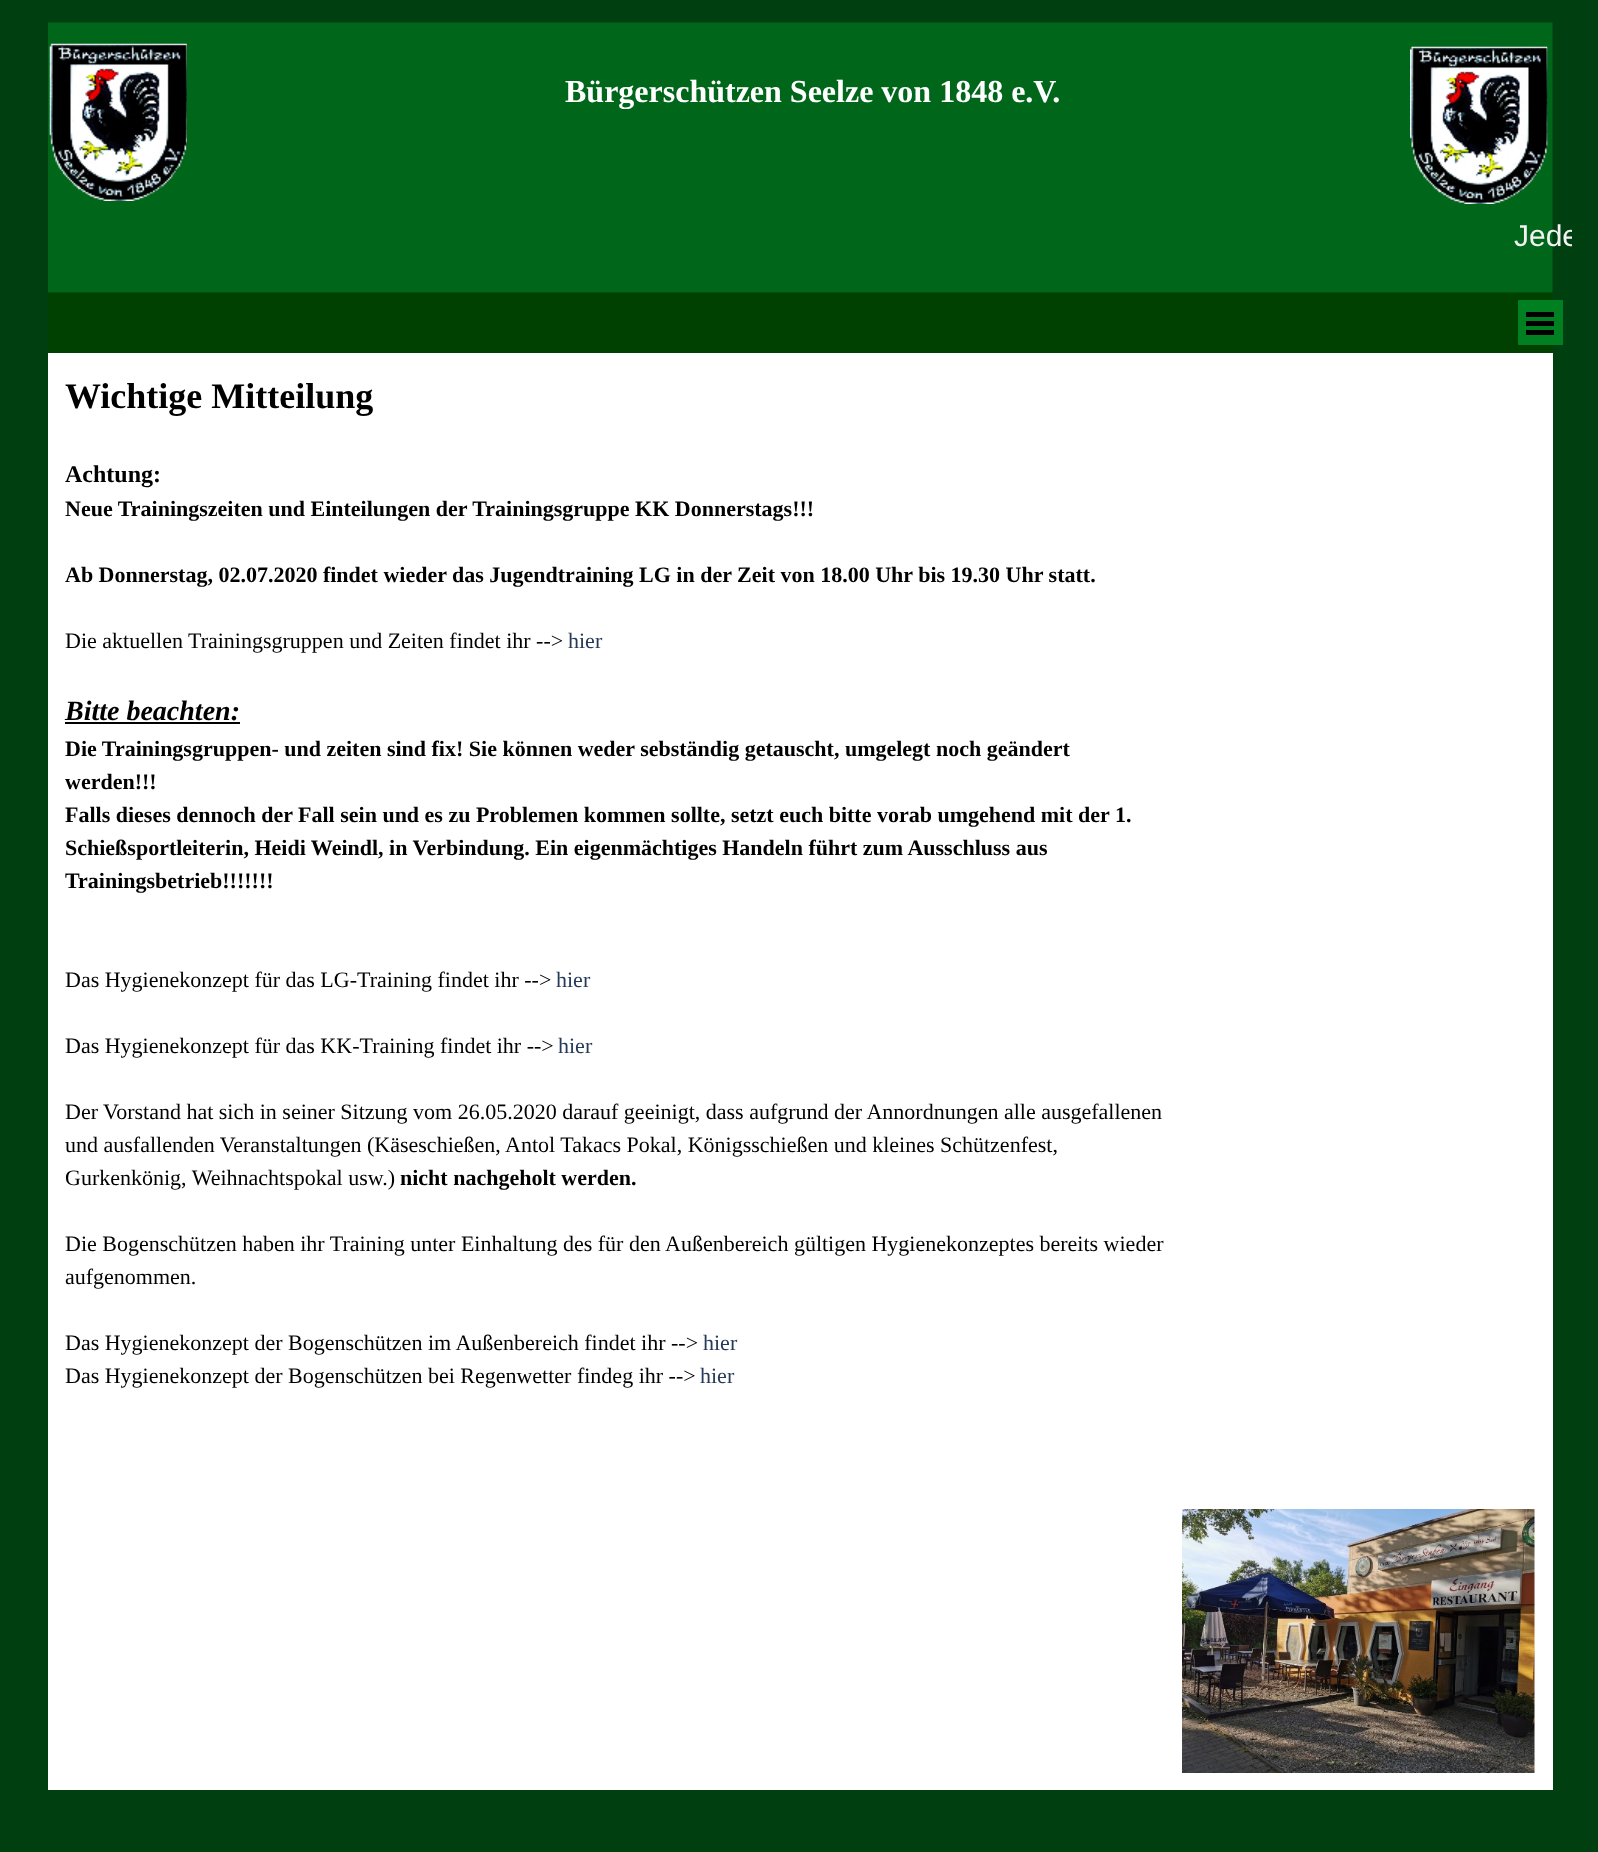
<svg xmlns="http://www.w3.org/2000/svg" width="1598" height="1852">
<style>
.a{font:bold 32px Liberation Serif;fill:#fff}
.b{font:30px Liberation Sans;fill:#f2f2f2}
.c{font:bold 36px Liberation Serif;fill:#000}
.d{font:bold 24px Liberation Serif;fill:#000}
.e{font:bold 22px Liberation Serif;fill:#000}
.f{font:22px Liberation Serif;fill:#000}
.g{font:22px Liberation Serif;fill:#253a58}
.h{font:italic bold 28px Liberation Serif;fill:#000}
</style>
<defs>
<clipPath id="clip1"><path d="M48 219h1524v35H48z"/></clipPath>
</defs>
<rect width="100%" height="100%" fill="#004010"/>
<image href="1.png" x="48" y="22" width="1505" height="331"/>
<image href="2.png" x="49" y="43" width="138" height="158"/>
<image href="3.png" x="1410" y="46" width="138" height="158"/>
<image href="4.png" x="1518" y="300" width="45" height="45"/>
<path fill="#000" d="M1526 312h28v5H1526z"/>
<path fill="#000" d="M1526 321h28v5H1526z"/>
<path fill="#000" d="M1526 330h28v5H1526z"/>
<path fill="#fff" d="M48 353h1505v1437H48z"/>
<path fill="#000" d="M65 722h175v2H65z"/>
<image href="5.png" x="1182" y="1509" width="353" height="264"/>
<text class="a" x="565" y="102">Bürgerschützen Seelze von 1848 e.V.</text>
<g clip-path="url(#clip1)">
<text class="b" x="1514" y="246">Jede</text>
</g>
<text class="c" x="65" y="408">Wichtige Mitteilung</text>
<text class="d" x="65" y="482">Achtung:</text>
<text class="e" x="65" y="516">Neue Trainingszeiten und Einteilungen der Trainingsgruppe KK Donnerstags!!!</text>
<text class="e" x="65" y="582">Ab Donnerstag, 02.07.2020 findet wieder das Jugendtraining LG in der Zeit von 18.00 Uhr bis 19.30 Uhr statt.</text>
<text class="f" x="65" y="648">Die aktuellen Trainingsgruppen und Zeiten findet ihr --&gt;</text>
<text class="g" x="568" y="648">hier</text>
<text class="h" x="65" y="720">Bitte beachten:</text>
<text class="e" x="65" y="756">Die Trainingsgruppen- und zeiten sind fix! Sie können weder sebständig getauscht, umgelegt noch geändert</text>
<text class="e" x="65" y="789">werden!!!</text>
<text class="e" x="65" y="822">Falls dieses dennoch der Fall sein und es zu Problemen kommen sollte, setzt euch bitte vorab umgehend mit der 1.</text>
<text class="e" x="65" y="855">Schießsportleiterin, Heidi Weindl, in Verbindung. Ein eigenmächtiges Handeln führt zum Ausschluss aus</text>
<text class="e" x="65" y="888">Trainingsbetrieb!!!!!!!</text>
<text class="f" x="65" y="987">Das Hygienekonzept für das LG-Training findet ihr --&gt;</text>
<text class="g" x="556" y="987">hier</text>
<text class="f" x="65" y="1053">Das Hygienekonzept für das KK-Training findet ihr --&gt;</text>
<text class="g" x="558" y="1053">hier</text>
<text class="f" x="65" y="1119">Der Vorstand hat sich in seiner Sitzung vom 26.05.2020 darauf geeinigt, dass aufgrund der Annordnungen alle ausgefallenen</text>
<text class="f" x="65" y="1152">und ausfallenden Veranstaltungen (Käseschießen, Antol Takacs Pokal, Königsschießen und kleines Schützenfest,</text>
<text class="f" x="65" y="1185">Gurkenkönig, Weihnachtspokal usw.)</text>
<text class="e" x="400" y="1185">nicht nachgeholt werden.</text>
<text class="f" x="65" y="1251">Die Bogenschützen haben ihr Training unter Einhaltung des für den Außenbereich gültigen Hygienekonzeptes bereits wieder</text>
<text class="f" x="65" y="1284">aufgenommen.</text>
<text class="f" x="65" y="1350">Das Hygienekonzept der Bogenschützen im Außenbereich findet ihr --&gt;</text>
<text class="g" x="703" y="1350">hier</text>
<text class="f" x="65" y="1383">Das Hygienekonzept der Bogenschützen bei Regenwetter findeg ihr --&gt;</text>
<text class="g" x="700" y="1383">hier</text>
</svg>
